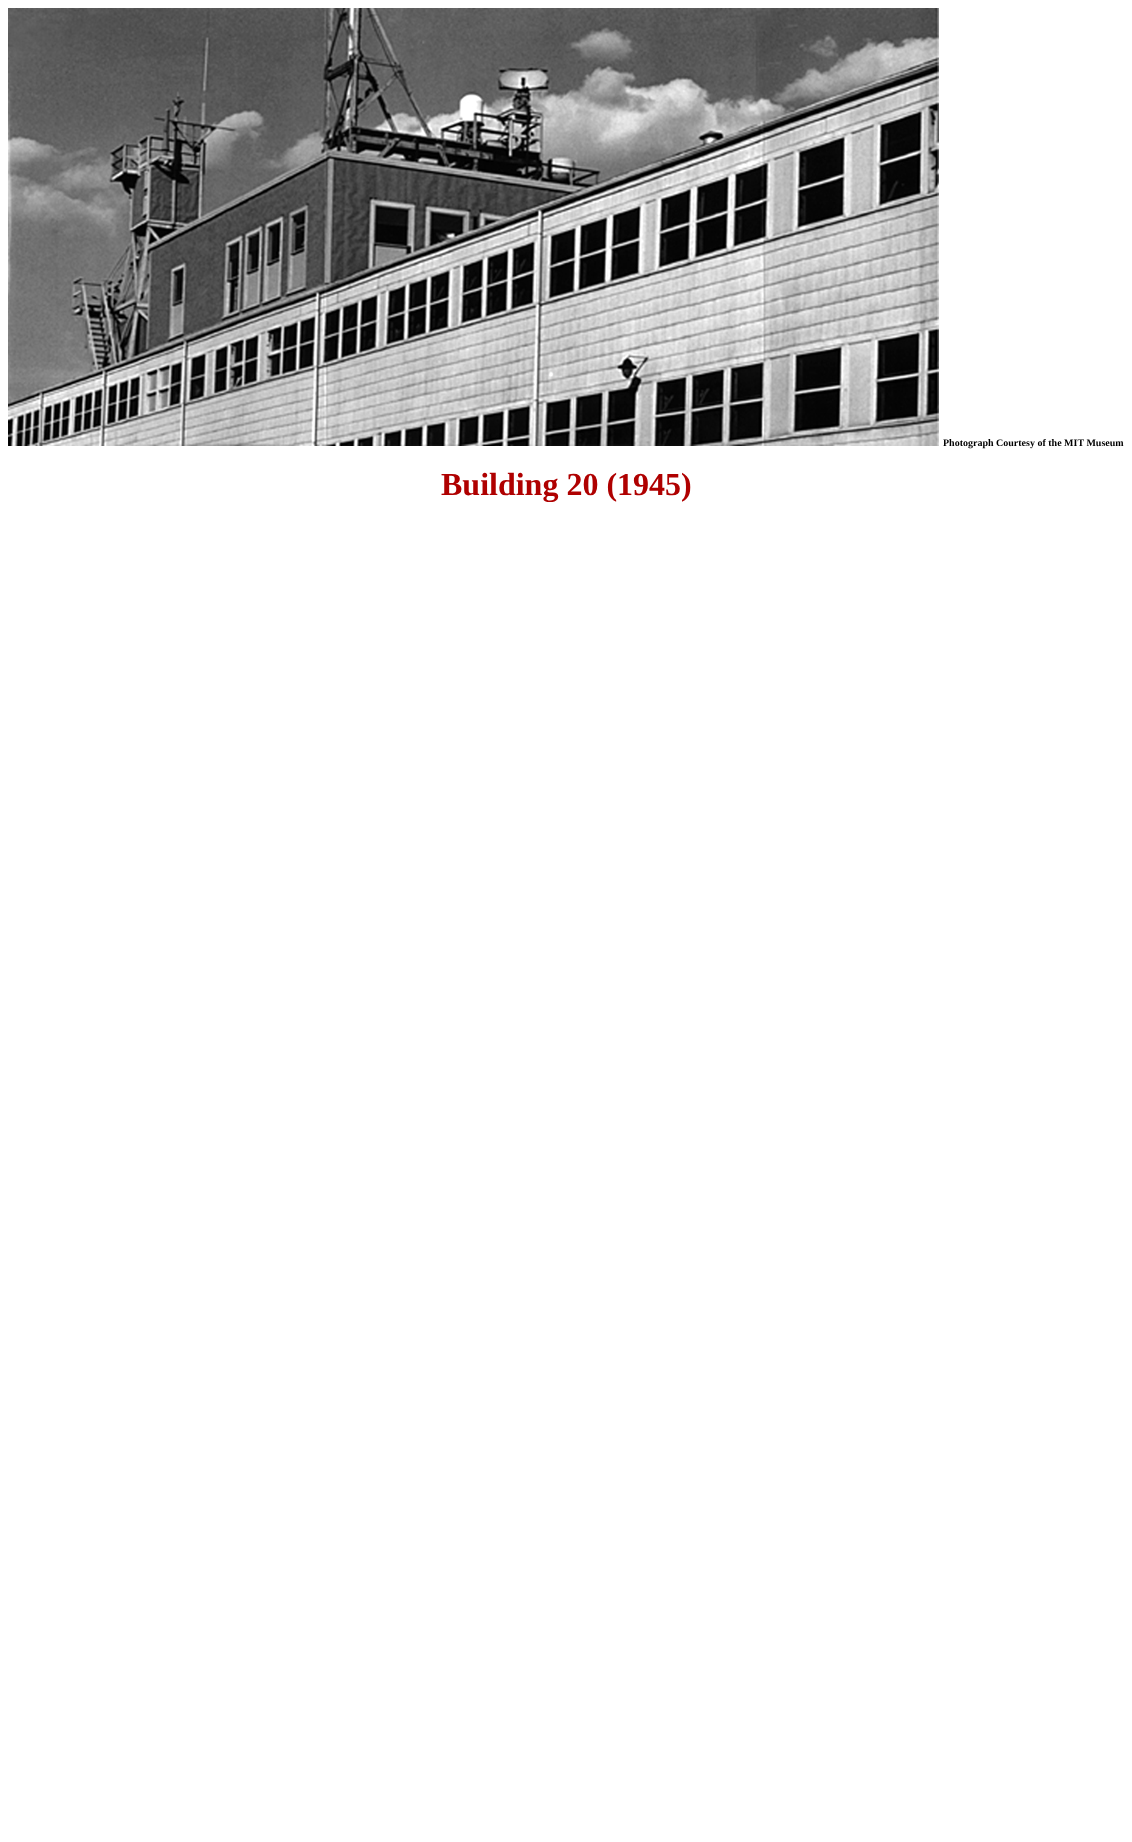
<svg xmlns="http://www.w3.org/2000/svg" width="1132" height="1842">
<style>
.a{font:bold 10px Liberation Serif;fill:#000}
.b{font:bold 32px Liberation Serif;fill:#af0000}
</style>
<rect width="100%" height="100%" fill="#fff"/>
<image href="1.png" x="8" y="8" width="931" height="438"/>
<text class="a" x="943" y="446">Photograph Courtesy of the MIT Museum</text>
<text class="b" x="441" y="495">Building 20 (1945)</text>
</svg>
